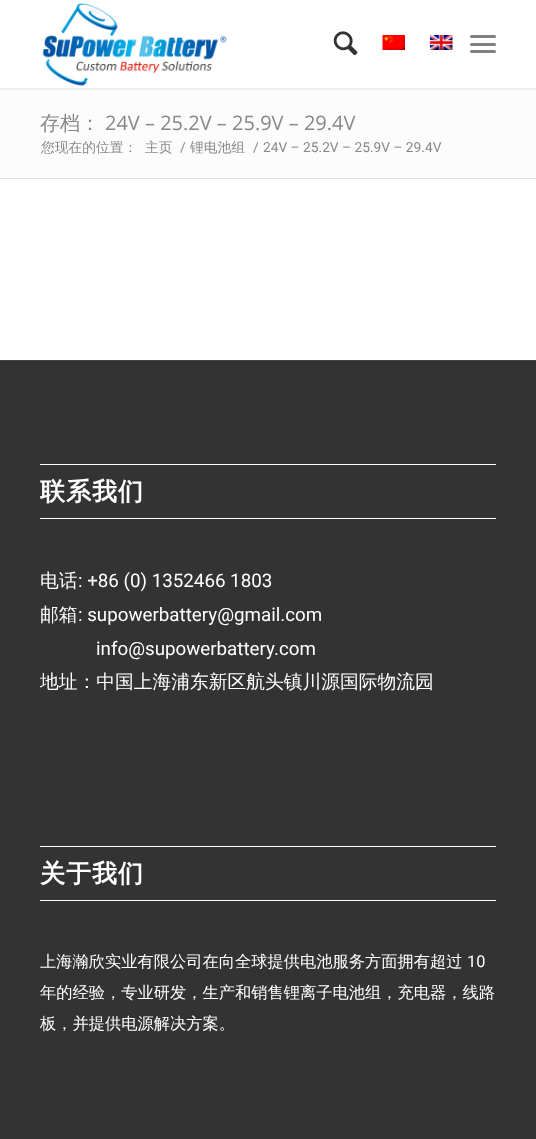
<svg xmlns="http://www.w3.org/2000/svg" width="536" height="1139">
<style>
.a{font:500 20px WenQuanYi Zen Hei;fill:#888}
.b{font:20px Open Sans;fill:#888}
.c{font:500 13.75px WenQuanYi Zen Hei;fill:#888}
.d{font:13.75px Roboto;fill:#888}
.e{font:bold 25px WenQuanYi Zen Hei;letter-spacing:1px;fill:#fff}
.f{font:500 18.75px WenQuanYi Zen Hei;fill:#fff}
.g{font:18.75px Roboto;fill:#fff}
.h{font:500 16.25px WenQuanYi Zen Hei;fill:#fff}
.i{font:16.25px Roboto;fill:#fff}
</style>
<rect width="100%" height="100%" fill="#fff"/>
<path fill="#fcfcfc" d="M0 88h536v90H0z"/>
<path fill="#0000001a" filter="blur(1px)" d="M-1 -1h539v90H-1z"/>
<path fill="#fff" d="M0 0h536v88H0z"/>
<image href="1.png" x="42" y="2" width="185" height="84"/>
<image href="2.png" x="333" y="31" width="25" height="25"/>
<image href="3.png" x="382" y="35" width="23" height="15"/>
<image href="4.png" x="430" y="35" width="23" height="15"/>
<rect fill="#808080" x="470" y="43" width="26" height="3" rx="1.5"/>
<rect fill="#808080" x="470" y="35" width="26" height="3" rx="1.5"/>
<rect fill="#808080" x="470" y="50" width="26" height="3" rx="1.5"/>
<path fill="#e1e1e1" d="M0 178h536v1H0z"/>
<path fill="#333" d="M0 361h536v778H0z"/>
<path fill="#444" d="M0 360h536v1H0z"/>
<path fill="#fff" d="M40 464h456v1H40z"/>
<path fill="#fff" d="M40 518h456v1H40z"/>
<path fill="#fff" d="M40 846h456v1H40z"/>
<path fill="#fff" d="M40 900h456v1H40z"/>
<text class="a" x="40" y="130">存档：</text>
<text class="b" x="105" y="130">24V – 25.2V – 25.9V – 29.4V</text>
<text class="c" x="41" y="152">您现在的位置：</text>
<text class="c" x="145" y="152">主页</text>
<text class="d" x="180" y="152">/</text>
<text class="c" x="190" y="152">锂电池组</text>
<text class="d" x="253" y="152">/</text>
<text class="d" x="263" y="152">24V – 25.2V – 25.9V – 29.4V</text>
<text class="e" x="40" y="500">联系我们</text>
<text class="f" x="40" y="587">电话</text>
<text class="g" x="78" y="587">: +86 (0) 1352466 1803</text>
<text class="f" x="40" y="621">邮箱</text>
<text class="g" x="78" y="621">: supowerbattery@gmail.com</text>
<text class="g" x="96" y="655">info@supowerbattery.com</text>
<text class="f" x="40" y="688">地址：中国上海浦东新区航头镇川源国际物流园</text>
<text class="e" x="40" y="882">关于我们</text>
<text class="h" x="40" y="967">上海瀚欣实业有限公司在向全球提供电池服务方面拥有超过</text>
<text class="i" x="467" y="967">10</text>
<text class="h" x="40" y="998">年的经验，专业研发，生产和销售锂离子电池组，充电器，线路</text>
<text class="h" x="40" y="1029">板，并提供电源解决方案。</text>
</svg>
